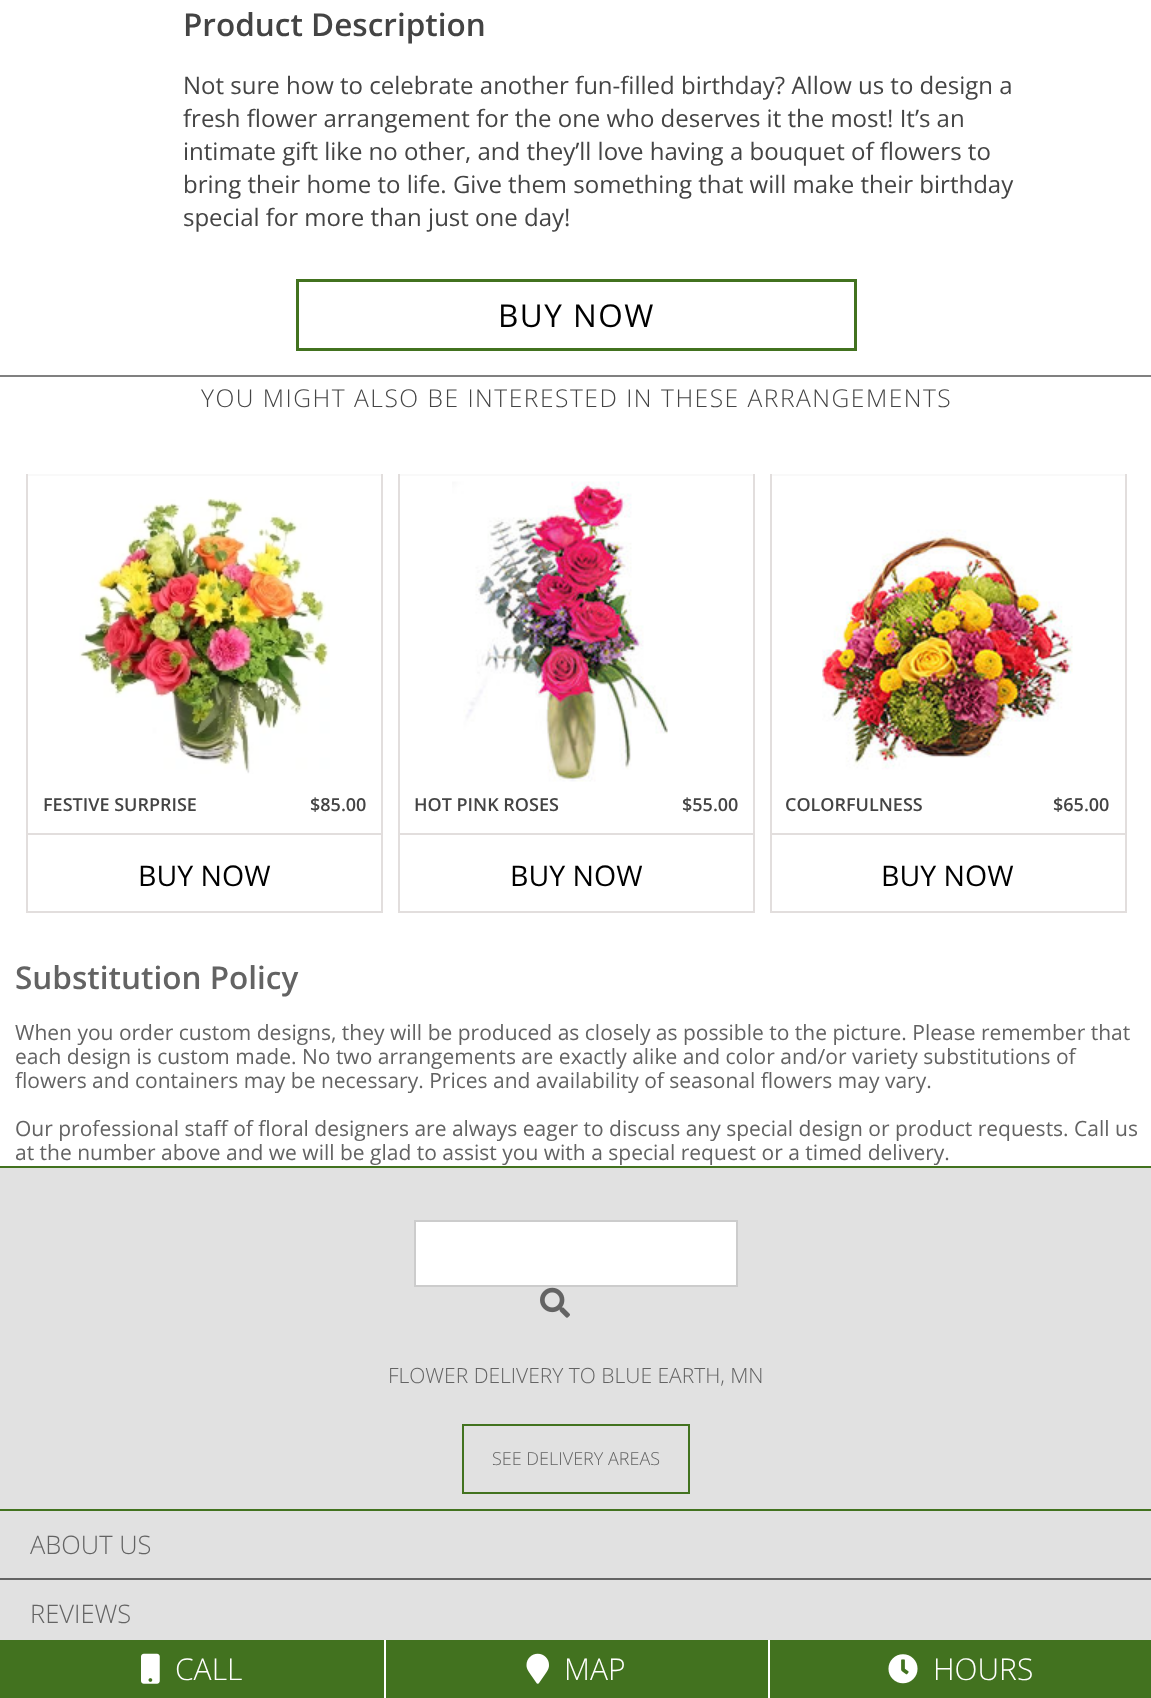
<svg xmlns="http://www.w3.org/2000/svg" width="1151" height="1698">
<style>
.a{font:600 31.5px Open Sans;fill:#444}
.b{font:24px Open Sans;fill:#444}
.c{font:31.5px Open Sans;letter-spacing:1.5px;fill:#000}
.d{font:300 24.6px Open Sans;letter-spacing:1.5px;fill:#444}
.e{font:600 18px Open Sans;fill:#444}
.f{font:28.5px Open Sans;fill:#000}
.g{font:600 31.5px Open Sans;fill:#636363}
.h{font:21px Open Sans;fill:#636363}
.i{font:300 21px Open Sans;fill:#636363}
.j{font:300 18px Open Sans;fill:#636363}
.k{font:300 25.5px Open Sans;fill:#636363}
.l{font:300 30px Open Sans;fill:#fff}
</style>
<rect width="100%" height="100%" fill="#fff"/>
<path fill="none" stroke="#42721f" stroke-width="3" d="M297.5 280.5h558v69H297.5z"/>
<path fill="#808080" d="M0 375h1151v2H0z"/>
<path fill="#f9f9f9" d="M26 474h357v2H26z"/>
<path fill="#e2dedd" d="M381 474h2v438H381z"/>
<path fill="#e2dedd" d="M26 911h357v2H26z"/>
<path fill="#e2dedd" d="M26 474h2v438H26z"/>
<image href="1.png" x="79" y="497" width="251" height="277"/>
<path fill="#e2dedd" d="M27 833h354v2H27z"/>
<path fill="#f9f9f9" d="M398 474h357v2H398z"/>
<path fill="#e2dedd" d="M753 474h2v438H753z"/>
<path fill="#e2dedd" d="M398 911h357v2H398z"/>
<path fill="#e2dedd" d="M398 474h2v438H398z"/>
<image href="2.png" x="452" y="481" width="216" height="301"/>
<path fill="#e2dedd" d="M399 833h354v2H399z"/>
<path fill="#f9f9f9" d="M770 474h357v2H770z"/>
<path fill="#e2dedd" d="M1125 474h2v438H1125z"/>
<path fill="#e2dedd" d="M770 911h357v2H770z"/>
<path fill="#e2dedd" d="M770 474h2v438H770z"/>
<image href="3.png" x="822" y="529" width="251" height="241"/>
<path fill="#e2dedd" d="M771 833h354v2H771z"/>
<path fill="#e1e1e1" d="M0 1168h1151v341H0z"/>
<path fill="#42721f" d="M0 1166h1151v2H0z"/>
<path fill="#42721f" d="M0 1509h1151v2H0z"/>
<path fill="#fff" stroke="#ccc" stroke-width="2" d="M415 1221h322v65H415z"/>
<image href="4.png" x="540" y="1287" width="30" height="31"/>
<path fill="none" stroke="#42721f" stroke-width="2" d="M463 1425h226v68H463z"/>
<path fill="#e1e1e1" d="M0 1511h1151v129H0z"/>
<path fill="#636363" d="M0 1578h1151v2H0z"/>
<path fill="#42721f" d="M0 1640h384v58H0z"/>
<image href="5.png" x="141" y="1653" width="19" height="31"/>
<path fill="#42721f" d="M386 1640h382v58H386z"/>
<image href="6.png" x="526" y="1653" width="23" height="31"/>
<path fill="#42721f" d="M770 1640h381v58H770z"/>
<image href="7.png" x="888" y="1654" width="30" height="30"/>
<text class="a" x="183" y="36">Product Description</text>
<text class="b" x="183" y="94">Not sure how to celebrate another fun-filled birthday? Allow us to design a</text>
<text class="b" x="183" y="127">fresh flower arrangement for the one who deserves it the most! It’s an</text>
<text class="b" x="183" y="160">intimate gift like no other, and they’ll love having a bouquet of flowers to</text>
<text class="b" x="183" y="193">bring their home to life. Give them something that will make their birthday</text>
<text class="b" x="183" y="226">special for more than just one day!</text>
<text class="c" x="498" y="327">BUY NOW</text>
<text class="d" x="201" y="407">YOU MIGHT ALSO BE INTERESTED IN THESE ARRANGEMENTS</text>
<text class="e" x="43" y="811">FESTIVE SURPRISE</text>
<text class="e" x="310" y="811">$85.00</text>
<text class="f" x="138" y="886">BUY NOW</text>
<text class="e" x="414" y="811">HOT PINK ROSES</text>
<text class="e" x="682" y="811">$55.00</text>
<text class="f" x="510" y="886">BUY NOW</text>
<text class="e" x="785" y="811">COLORFULNESS</text>
<text class="e" x="1053" y="811">$65.00</text>
<text class="f" x="881" y="886">BUY NOW</text>
<text class="g" x="15" y="989">Substitution Policy</text>
<text class="h" x="15" y="1040">When you order custom designs, they will be produced as closely as possible to the picture. Please remember that</text>
<text class="h" x="15" y="1064">each design is custom made. No two arrangements are exactly alike and color and/or variety substitutions of</text>
<text class="h" x="15" y="1088">flowers and containers may be necessary. Prices and availability of seasonal flowers may vary.</text>
<text class="h" x="15" y="1136">Our professional staff of floral designers are always eager to discuss any special design or product requests. Call us</text>
<text class="h" x="15" y="1160">at the number above and we will be glad to assist you with a special request or a timed delivery.</text>
<text class="i" x="388" y="1383">FLOWER DELIVERY TO BLUE EARTH, MN</text>
<text class="j" x="492" y="1465">SEE DELIVERY AREAS</text>
<text class="k" x="30" y="1554">ABOUT US</text>
<text class="k" x="30" y="1623">REVIEWS</text>
<text class="l" x="175" y="1680">CALL</text>
<text class="l" x="564" y="1680">MAP</text>
<text class="l" x="933" y="1680">HOURS</text>
</svg>
